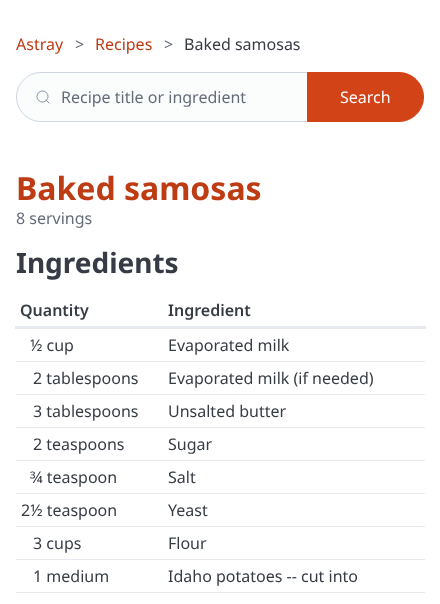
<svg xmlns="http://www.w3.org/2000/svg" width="440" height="604">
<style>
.a{font:16px Noto Sans;fill:#bd3c13}
.b{font:16px Noto Sans;fill:#646b79}
.c{font:16px Noto Sans;fill:#373c44}
.d{font:16px Noto Sans;fill:#fff}
.e{font:bold 32px Noto Sans;fill:#bd3c13}
.f{font:bold 28px Noto Sans;fill:#373c44}
.g{font:600 16px Noto Sans;fill:#373c44}
</style>
<rect width="100%" height="100%" fill="#fff"/>
<path fill="#fbfcfc" d="M41 72h267v50h-267c-14 0-25-11-25-25c0-14 11-25 25-25z"/>
<circle fill="none" stroke="#8891a4" cx="42.5" cy="96.5" r="5.5"/>
<path fill="none" stroke="#8891a4" stroke-linecap="round" stroke-linejoin="round" d="M49 103l-3-3"/>
<path fill="none" stroke="#cfd5e2" d="M41 72.5h266.5v49h-266.5c-13.5 0-24.5-11-24.5-24.5c0-13.5 11-24.5 24.5-24.5z"/>
<path fill="#d24317" stroke="#d24317" d="M307.5 72.5h91.5c13.5 0 24.5 11 24.5 24.5c0 13.5-11 24.5-24.5 24.5h-91.5z"/>
<path fill="#e7eaf0" d="M15 326h411v3H15z"/>
<path fill="#e7eaf0" d="M16 361h409v1H16z"/>
<path fill="#e7eaf0" d="M16 394h409v1H16z"/>
<path fill="#e7eaf0" d="M16 427h409v1H16z"/>
<path fill="#e7eaf0" d="M16 460h409v1H16z"/>
<path fill="#e7eaf0" d="M16 493h409v1H16z"/>
<path fill="#e7eaf0" d="M16 526h409v1H16z"/>
<path fill="#e7eaf0" d="M16 559h409v1H16z"/>
<path fill="#e7eaf0" d="M16 592h409v1H16z"/>
<text class="a" x="16" y="50">Astray</text>
<text class="b" x="75" y="50">&gt;</text>
<text class="a" x="95" y="50">Recipes</text>
<text class="b" x="164" y="50">&gt;</text>
<text class="c" x="184" y="50">Baked samosas</text>
<text class="b" x="61" y="103">Recipe title or ingredient</text>
<text class="d" x="340" y="103">Search</text>
<text class="e" x="16" y="200">Baked samosas</text>
<text class="b" x="16" y="224">8 servings</text>
<text class="f" x="16" y="273">Ingredients</text>
<text class="g" x="20" y="316">Quantity</text>
<text class="g" x="168" y="316">Ingredient</text>
<text class="c" x="30" y="351">½ cup</text>
<text class="c" x="168" y="351">Evaporated milk</text>
<text class="c" x="33" y="384">2 tablespoons</text>
<text class="c" x="168" y="384">Evaporated milk (if needed)</text>
<text class="c" x="33" y="417">3 tablespoons</text>
<text class="c" x="168" y="417">Unsalted butter</text>
<text class="c" x="33" y="450">2 teaspoons</text>
<text class="c" x="168" y="450">Sugar</text>
<text class="c" x="30" y="483">¾ teaspoon</text>
<text class="c" x="168" y="483">Salt</text>
<text class="c" x="21" y="516">2½ teaspoon</text>
<text class="c" x="168" y="516">Yeast</text>
<text class="c" x="33" y="549">3 cups</text>
<text class="c" x="168" y="549">Flour</text>
<text class="c" x="33" y="582">1 medium</text>
<text class="c" x="168" y="582">Idaho potatoes -- cut into</text>
</svg>
